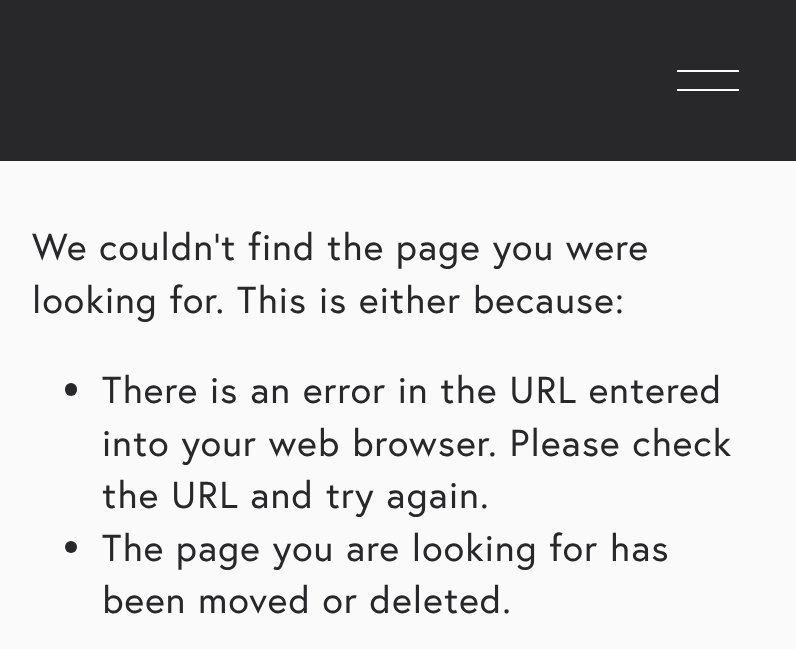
<svg xmlns="http://www.w3.org/2000/svg" width="796" height="649">
<style>
.a{font:37.5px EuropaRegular;letter-spacing:1.15px;fill:#28282a}
</style>
<rect width="100%" height="100%" fill="#fafafa"/>
<path fill="#28282a" d="M0 0h796v161H0z"/>
<path fill="#fafafa" d="M677 70h62v2H677z"/>
<path fill="#fafafa" d="M677 89h62v2H677z"/>
<rect fill="#28282a" x="65" y="383" width="12" height="13" rx="6"/>
<circle fill="#28282a" cx="71" cy="547" r="6"/>
<text class="a" x="32" y="260">We couldn't find the page you were</text>
<text class="a" x="32" y="313">looking for. This is either because:</text>
<text class="a" x="102" y="403">There is an error in the URL entered</text>
<text class="a" x="102" y="456">into your web browser. Please check</text>
<text class="a" x="102" y="508">the URL and try again.</text>
<text class="a" x="102" y="561">The page you are looking for has</text>
<text class="a" x="102" y="613">been moved or deleted.</text>
</svg>
